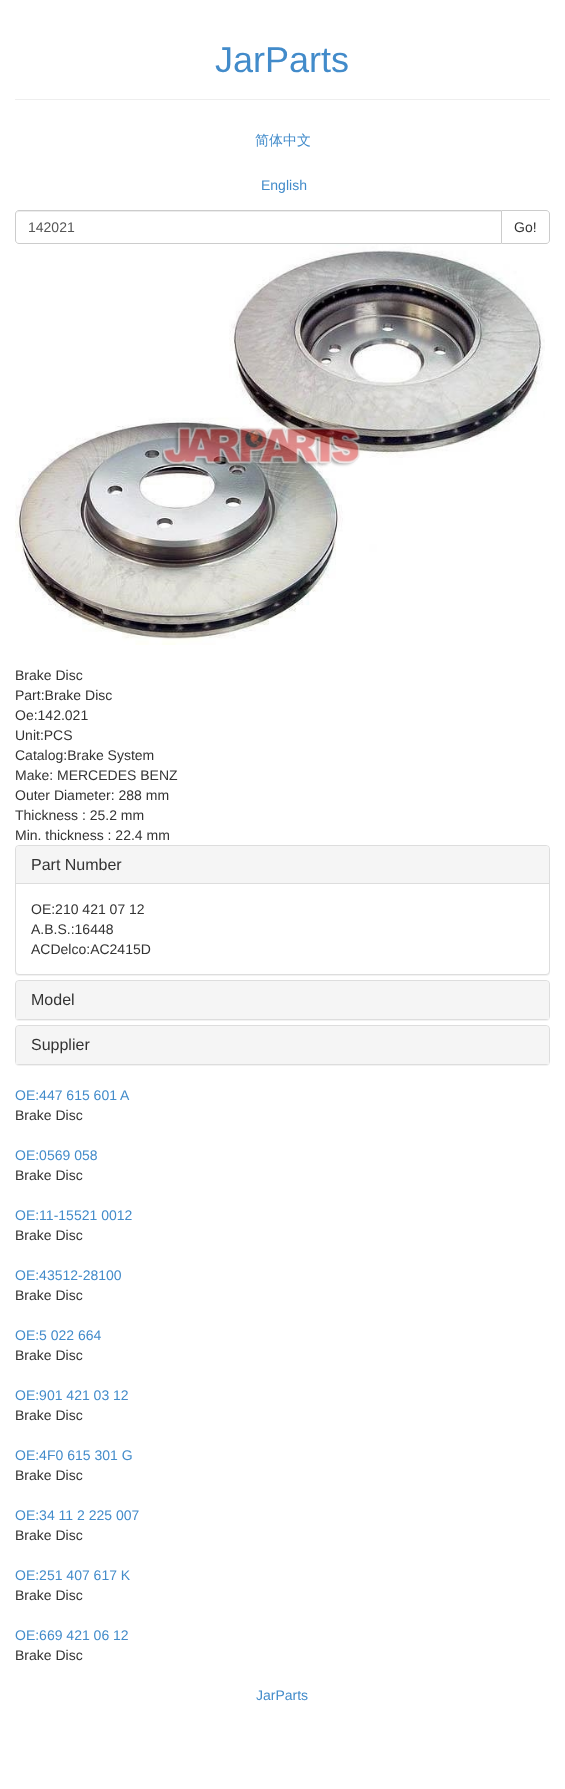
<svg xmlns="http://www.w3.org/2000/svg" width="565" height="1789">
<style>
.a{font:36px Liberation Sans;fill:#428bca}
.b{font:500 14px WenQuanYi Zen Hei;fill:#428bca}
.c{font:14px Liberation Sans;fill:#428bca}
.d{font:14px Liberation Sans;fill:#555}
.e{font:14px Liberation Sans;fill:#333}
.f{font:16px Liberation Sans;fill:#333}
</style>
<rect width="100%" height="100%" fill="#fff"/>
<path fill="#eee" d="M15 99h535v1H15z"/>
<path fill="none" stroke="#ccc" d="M501.5 210.5h44.5c2 0 3.5 1.5 3.5 3.5v26c0 2-1.5 3.5-3.5 3.5h-44.5z"/>
<path fill="#fff" d="M19 210h483v34h-483c-2 0-4-2-4-4v-26c0-2 2-4 4-4z"/>
<path fill="#ececec" d="M19 212h482v-1h-482c-2 0-3 2-3 4c0-2 1-3 3-3z"/>
<path fill="none" stroke="#ccc" d="M19 210.5h482.5v33h-482.5c-2 0-3.5-1.5-3.5-3.5v-26c0-2 1.5-3.5 3.5-3.5z"/>
<image href="1.png" x="15" y="244" width="530" height="401"/>
<rect fill="#0000000d" filter="blur(0.5px)" x="15" y="846" width="535" height="130" rx="4"/>
<rect fill="#fff" stroke="#ddd" x="15.5" y="845.5" width="534" height="129" rx="3.5"/>
<path fill="#f5f5f5" d="M19 846h527c1.5 0 3 1.5 3 3v34h-533v-34c0-1.5 1.5-3 3-3z"/>
<path fill="#ddd" d="M16 883h533v1H16z"/>
<rect fill="#0000000d" filter="blur(0.5px)" x="15" y="981" width="535" height="40" rx="4"/>
<rect fill="none" stroke="#ddd" x="15.5" y="980.5" width="534" height="39" rx="3.5"/>
<path fill="#f5f5f5" d="M19 981h527c1.5 0 3 1.5 3 3v35h-533v-35c0-1.5 1.5-3 3-3z"/>
<rect fill="#0000000d" filter="blur(0.5px)" x="15" y="1026" width="535" height="40" rx="4"/>
<rect fill="none" stroke="#ddd" x="15.5" y="1025.5" width="534" height="39" rx="3.5"/>
<path fill="#f5f5f5" d="M19 1026h527c1.5 0 3 1.5 3 3v35h-533v-35c0-1.5 1.5-3 3-3z"/>
<text class="a" x="215" y="72">JarParts</text>
<text class="b" x="255" y="145">简体中文</text>
<text class="c" x="261" y="190">English</text>
<text class="d" x="28" y="232">142021</text>
<text class="e" x="514" y="232">Go!</text>
<text class="e" x="15" y="680">Brake Disc</text>
<text class="e" x="15" y="700">Part:Brake Disc</text>
<text class="e" x="15" y="720">Oe:142.021</text>
<text class="e" x="15" y="740">Unit:PCS</text>
<text class="e" x="15" y="760">Catalog:Brake System</text>
<text class="e" x="15" y="780">Make: MERCEDES BENZ</text>
<text class="e" x="15" y="800">Outer Diameter: 288 mm</text>
<text class="e" x="15" y="820">Thickness : 25.2 mm</text>
<text class="e" x="15" y="840">Min. thickness : 22.4 mm</text>
<text class="f" x="31" y="870">Part Number</text>
<text class="e" x="31" y="914">OE:210 421 07 12</text>
<text class="e" x="31" y="934">A.B.S.:16448</text>
<text class="e" x="31" y="954">ACDelco:AC2415D</text>
<text class="f" x="31" y="1005">Model</text>
<text class="f" x="31" y="1050">Supplier</text>
<text class="c" x="15" y="1100">OE:447 615 601 A</text>
<text class="e" x="15" y="1120">Brake Disc</text>
<text class="c" x="15" y="1160">OE:0569 058</text>
<text class="e" x="15" y="1180">Brake Disc</text>
<text class="c" x="15" y="1220">OE:11-15521 0012</text>
<text class="e" x="15" y="1240">Brake Disc</text>
<text class="c" x="15" y="1280">OE:43512-28100</text>
<text class="e" x="15" y="1300">Brake Disc</text>
<text class="c" x="15" y="1340">OE:5 022 664</text>
<text class="e" x="15" y="1360">Brake Disc</text>
<text class="c" x="15" y="1400">OE:901 421 03 12</text>
<text class="e" x="15" y="1420">Brake Disc</text>
<text class="c" x="15" y="1460">OE:4F0 615 301 G</text>
<text class="e" x="15" y="1480">Brake Disc</text>
<text class="c" x="15" y="1520">OE:34 11 2 225 007</text>
<text class="e" x="15" y="1540">Brake Disc</text>
<text class="c" x="15" y="1580">OE:251 407 617 K</text>
<text class="e" x="15" y="1600">Brake Disc</text>
<text class="c" x="15" y="1640">OE:669 421 06 12</text>
<text class="e" x="15" y="1660">Brake Disc</text>
<text class="c" x="256" y="1700">JarParts</text>
</svg>
